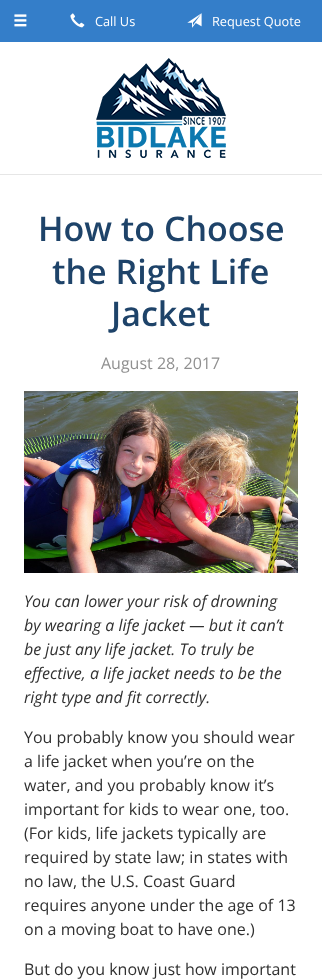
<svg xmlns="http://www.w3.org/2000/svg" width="322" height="979">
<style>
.a{font:12.75px Open Sans;fill:#fff}
.b{font:600 34px Open Sans;fill:#1e4369}
.c{font:16px Open Sans;fill:#909090}
.d{font:italic 16px Open Sans;fill:#303030}
.e{font:16px Open Sans;fill:#303030}
</style>
<rect width="100%" height="100%" fill="#347ec9"/>
<image href="1.png" x="14" y="14" width="13" height="13"/>
<image href="2.png" x="70" y="13" width="15" height="15"/>
<image href="3.png" x="187" y="13" width="15" height="15"/>
<path fill="#fff" d="M0 42h322v132H0z"/>
<path fill="#e6e6e6" d="M0 174h322v1H0z"/>
<image href="4.png" x="96" y="58" width="130" height="100"/>
<path fill="#fff" d="M0 175h322v804H0z"/>
<image href="5.png" x="24" y="391" width="274" height="182"/>
<text class="a" x="95" y="26">Call Us</text>
<text class="a" x="212" y="26">Request Quote</text>
<text class="b" x="38" y="241">How to Choose</text>
<text class="b" x="52" y="284">the Right Life</text>
<text class="b" x="111" y="326">Jacket</text>
<text class="c" x="101" y="369">August 28, 2017</text>
<text class="d" x="24" y="607">You can lower your risk of drowning</text>
<text class="d" x="24" y="631">by wearing a life jacket — but it can’t</text>
<text class="d" x="24" y="655">be just any life jacket. To truly be</text>
<text class="d" x="24" y="679">effective, a life jacket needs to be the</text>
<text class="d" x="24" y="703">right type and fit correctly.</text>
<text class="e" x="24" y="743">You probably know you should wear</text>
<text class="e" x="24" y="767">a life jacket when you’re on the</text>
<text class="e" x="24" y="791">water, and you probably know it’s</text>
<text class="e" x="24" y="815">important for kids to wear one, too.</text>
<text class="e" x="24" y="839">(For kids, life jackets typically are</text>
<text class="e" x="24" y="863">required by state law; in states with</text>
<text class="e" x="24" y="887">no law, the U.S. Coast Guard</text>
<text class="e" x="24" y="911">requires anyone under the age of 13</text>
<text class="e" x="24" y="935">on a moving boat to have one.)</text>
<text class="e" x="24" y="975">But do you know just how important</text>
</svg>
